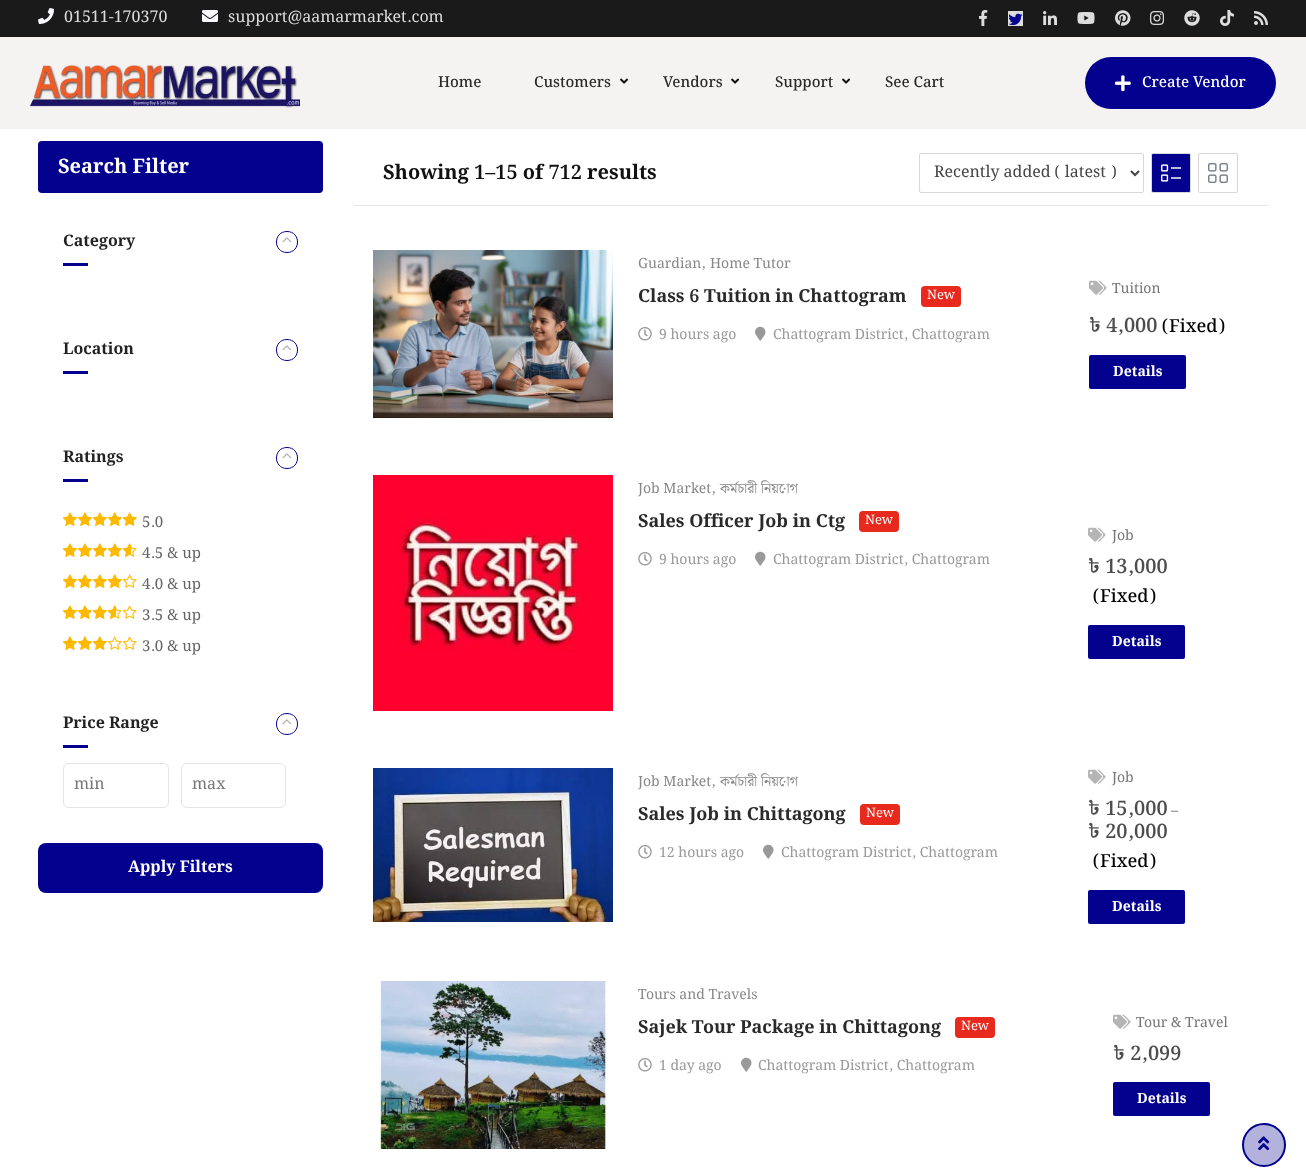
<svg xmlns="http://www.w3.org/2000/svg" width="1306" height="1172">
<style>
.a{font:16px Noto Serif Bengali;fill:#ddd}
.b{font:500 15px Noto Serif Bengali;fill:#2a2a2a}
.c{font:500 15px Noto Serif Bengali;fill:#fff}
.d{font:bold 20px Noto Serif Bengali;fill:#fff}
.e{font:bold 16px Noto Serif Bengali;fill:#222}
.f{font:15px Noto Serif Bengali;fill:#646464}
.g{font:16px Noto Serif Bengali;fill:#757575}
.h{font:bold 16px Noto Serif Bengali;fill:#fff}
.i{font:bold 20px Noto Serif Bengali;fill:#111}
.j{font:16px Noto Serif Bengali;fill:#444}
.k{font:14px Noto Serif Bengali;fill:#888}
.l{font:bold 18px Noto Serif Bengali;fill:#2a2a2a}
.m{font:13px Noto Serif Bengali;fill:#fff}
.n{font:14px Noto Serif Bengali;fill:#999}
.o{font:14px Noto Serif Bengali;fill:#757575}
.p{font:600 20px Noto Serif Bengali;fill:#4d4d4d}
.q{font:500 18px Noto Serif Bengali;fill:#000}
.r{font:bold 14px Noto Serif Bengali;fill:#fff}
.s{font:bold 14px Noto Serif Bengali;fill:#757575}
</style>
<rect width="100%" height="100%" fill="#1a1a1a"/>
<image href="1.png" x="38" y="8" width="16" height="16"/>
<image href="2.png" x="202" y="10" width="16" height="12"/>
<image href="3.png" x="979" y="10" width="9" height="16"/>
<path fill="#ddd" d="M1008 11h15v15H1008z"/>
<image href="4.png" x="1008" y="13" width="15" height="13"/>
<image href="5.png" x="1043" y="11" width="14" height="14"/>
<image href="6.png" x="1077" y="12" width="18" height="12"/>
<image href="7.png" x="1115" y="10" width="16" height="16"/>
<image href="8.png" x="1150" y="11" width="14" height="14"/>
<image href="9.png" x="1184" y="10" width="16" height="16"/>
<image href="10.png" x="1220" y="10" width="14" height="16"/>
<image href="11.png" x="1254" y="11" width="14" height="14"/>
<path fill="#f5f2f2" d="M0 37h1306v92H0z"/>
<image href="12.png" x="30" y="65" width="270" height="43"/>
<image href="13.png" x="620" y="78" width="9" height="6"/>
<image href="13.png" x="731" y="78" width="9" height="6"/>
<image href="13.png" x="842" y="78" width="9" height="6"/>
<rect fill="#03018e" x="1085" y="57" width="191" height="52" rx="26"/>
<image href="14.png" x="1115" y="75" width="16" height="17"/>
<path fill="#fff" d="M0 129h1306v1043H0z"/>
<rect fill="#03018e" x="38" y="141" width="285" height="52" rx="4"/>
<path fill="none" stroke="#03018e" d="M287 252.5c-14 0-14-21 0-21c14 0 14 21 0 21z"/>
<image href="15.png" x="282" y="237" width="10" height="6"/>
<path fill="#03018e" d="M63 263h25v3H63z"/>
<path fill="none" stroke="#03018e" d="M287 360.5c-14 0-14-21 0-21c14 0 14 21 0 21z"/>
<image href="15.png" x="282" y="345" width="10" height="6"/>
<path fill="#03018e" d="M63 371h25v3H63z"/>
<path fill="none" stroke="#03018e" d="M287 468.5c-14 0-14-21 0-21c14 0 14 21 0 21z"/>
<image href="15.png" x="282" y="453" width="10" height="6"/>
<path fill="#03018e" d="M63 479h25v3H63z"/>
<image href="16.png" x="63" y="512" width="74" height="14"/>
<image href="17.png" x="63" y="512" width="74" height="14"/>
<image href="16.png" x="63" y="543" width="74" height="14"/>
<image href="18.png" x="63" y="543" width="68" height="14"/>
<image href="16.png" x="63" y="574" width="74" height="14"/>
<image href="19.png" x="63" y="574" width="60" height="14"/>
<image href="16.png" x="63" y="605" width="74" height="14"/>
<image href="20.png" x="63" y="605" width="53" height="14"/>
<image href="16.png" x="63" y="636" width="74" height="14"/>
<image href="21.png" x="63" y="636" width="45" height="14"/>
<path fill="none" stroke="#03018e" d="M287 734.5c-14 0-14-21 0-21c14 0 14 21 0 21z"/>
<image href="15.png" x="282" y="719" width="10" height="6"/>
<path fill="#03018e" d="M63 745h25v3H63z"/>
<rect fill="none" stroke="#e4e4e4" x="63.5" y="763.5" width="105" height="44" rx="5.5"/>
<rect fill="none" stroke="#e4e4e4" x="181.5" y="763.5" width="104" height="44" rx="5.5"/>
<rect fill="#03018e" x="38" y="843" width="285" height="50" rx="8"/>
<rect fill="#0000001a" filter="blur(0.5px)" x="353" y="142" width="915" height="64" rx="2"/>
<rect fill="#fff" x="353" y="141" width="915" height="64" rx="2"/>
<rect fill="none" stroke="#d7d7d7" x="919.5" y="153.5" width="224" height="39" rx="1.5"/>
<path fill="none" stroke="#444" stroke-width="2" d="M1131 171l4 4l4-4"/>
<rect fill="#03018e" stroke="#d7d7d7" x="1151.5" y="153.5" width="39" height="39" rx="1.5"/>
<image href="22.png" x="1161" y="164" width="20" height="18"/>
<rect fill="none" stroke="#d7d7d7" x="1198.5" y="153.5" width="39" height="39" rx="1.5"/>
<image href="23.png" x="1208" y="163" width="20" height="20"/>
<rect fill="#0000001a" filter="blur(0.5px)" x="353" y="230" width="915" height="210" rx="2"/>
<rect fill="#fff" x="353" y="230" width="915" height="210" rx="2"/>
<image href="24.png" x="373" y="250" width="240" height="168"/>
<rect fill="#e7291e" x="921" y="286" width="40" height="21" rx="4"/>
<image href="25.png" x="638" y="327" width="14" height="14"/>
<image href="26.png" x="755" y="326" width="11" height="15"/>
<image href="27.png" x="1089" y="280" width="18" height="15"/>
<rect fill="#03018e" x="1089" y="355" width="97" height="34" rx="2"/>
<rect fill="#0000001a" filter="blur(0.5px)" x="353" y="455" width="915" height="278" rx="2"/>
<rect fill="#fff" x="353" y="455" width="915" height="278" rx="2"/>
<image href="28.png" x="373" y="475" width="240" height="236"/>
<rect fill="#e7291e" x="859" y="511" width="40" height="21" rx="4"/>
<image href="25.png" x="638" y="552" width="14" height="14"/>
<image href="26.png" x="755" y="551" width="11" height="15"/>
<image href="27.png" x="1088" y="527" width="18" height="15"/>
<rect fill="#03018e" x="1088" y="625" width="97" height="34" rx="2"/>
<rect fill="#0000001a" filter="blur(0.5px)" x="353" y="748" width="915" height="198" rx="2"/>
<rect fill="#fff" x="353" y="748" width="915" height="198" rx="2"/>
<image href="29.png" x="373" y="768" width="240" height="154"/>
<rect fill="#e7291e" x="860" y="804" width="40" height="21" rx="4"/>
<image href="25.png" x="638" y="845" width="14" height="14"/>
<image href="26.png" x="763" y="844" width="11" height="15"/>
<image href="27.png" x="1088" y="769" width="18" height="15"/>
<rect fill="#03018e" x="1088" y="890" width="97" height="34" rx="2"/>
<rect fill="#0000001a" filter="blur(0.5px)" x="353" y="961" width="915" height="210" rx="2"/>
<rect fill="#fff" x="353" y="961" width="915" height="210" rx="2"/>
<image href="30.png" x="378" y="981" width="230" height="168"/>
<rect fill="#e7291e" x="955" y="1017" width="40" height="21" rx="4"/>
<image href="25.png" x="638" y="1058" width="14" height="14"/>
<image href="26.png" x="741" y="1057" width="11" height="15"/>
<image href="27.png" x="1113" y="1014" width="18" height="15"/>
<rect fill="#03018e" x="1113" y="1082" width="97" height="34" rx="2"/>
<circle fill="#03018e4d" stroke="#03018e" stroke-width="2" cx="1264" cy="1145" r="21"/>
<image href="31.png" x="1258" y="1136" width="12" height="15"/>
<text class="a" x="64" y="22">01511-170370</text>
<text class="a" x="228" y="22">support@aamarmarket.com</text>
<text class="b" x="438" y="87">Home</text>
<text class="b" x="534" y="87">Customers</text>
<text class="b" x="663" y="87">Vendors</text>
<text class="b" x="775" y="87">Support</text>
<text class="b" x="885" y="87">See Cart</text>
<text class="c" x="1142" y="87">Create Vendor</text>
<text class="d" x="58" y="173">Search Filter</text>
<text class="e" x="63" y="246">Category</text>
<text class="e" x="63" y="354">Location</text>
<text class="e" x="63" y="462">Ratings</text>
<text class="f" x="142" y="527">5.0</text>
<text class="f" x="142" y="558">4.5 &amp; up</text>
<text class="f" x="142" y="589">4.0 &amp; up</text>
<text class="f" x="142" y="620">3.5 &amp; up</text>
<text class="f" x="142" y="651">3.0 &amp; up</text>
<text class="e" x="63" y="728">Price Range</text>
<text class="g" x="74" y="789">min</text>
<text class="g" x="192" y="789">max</text>
<text class="h" x="128" y="872">Apply Filters</text>
<text class="i" x="383" y="179">Showing 1–15 of 712 results</text>
<text class="j" x="934" y="177">Recently added ( latest )</text>
<text class="k" x="638" y="268">Guardian,</text>
<text class="k" x="710" y="268">Home Tutor</text>
<text class="l" x="638" y="302">Class 6 Tuition in Chattogram</text>
<text class="m" x="927" y="299">New</text>
<text class="n" x="659" y="339">9 hours ago</text>
<text class="n" x="773" y="339">Chattogram District, Chattogram</text>
<text class="o" x="1112" y="293">Tuition</text>
<text class="p" x="1089" y="332">৳ 4,000</text>
<text class="q" x="1162" y="332">(Fixed)</text>
<text class="r" x="1113" y="376">Details</text>
<text class="k" x="638" y="493">Job Market,</text>
<text class="k" x="720" y="493">কর্মচারী নিয়োগ</text>
<text class="l" x="638" y="527">Sales Officer Job in Ctg</text>
<text class="m" x="865" y="524">New</text>
<text class="n" x="659" y="564">9 hours ago</text>
<text class="n" x="773" y="564">Chattogram District, Chattogram</text>
<text class="o" x="1112" y="540">Job</text>
<text class="p" x="1088" y="573">৳ 13,000</text>
<text class="q" x="1093" y="602">(Fixed)</text>
<text class="r" x="1112" y="646">Details</text>
<text class="k" x="638" y="786">Job Market,</text>
<text class="k" x="720" y="786">কর্মচারী নিয়োগ</text>
<text class="l" x="638" y="820">Sales Job in Chittagong</text>
<text class="m" x="866" y="817">New</text>
<text class="n" x="659" y="857">12 hours ago</text>
<text class="n" x="781" y="857">Chattogram District, Chattogram</text>
<text class="o" x="1112" y="782">Job</text>
<text class="p" x="1088" y="815">৳ 15,000</text>
<text class="s" x="1171" y="815">–</text>
<text class="p" x="1088" y="838">৳ 20,000</text>
<text class="q" x="1093" y="867">(Fixed)</text>
<text class="r" x="1112" y="911">Details</text>
<text class="k" x="638" y="999">Tours and Travels</text>
<text class="l" x="638" y="1033">Sajek Tour Package in Chittagong</text>
<text class="m" x="961" y="1030">New</text>
<text class="n" x="659" y="1070">1 day ago</text>
<text class="n" x="758" y="1070">Chattogram District, Chattogram</text>
<text class="o" x="1136" y="1027">Tour &amp; Travel</text>
<text class="p" x="1113" y="1060">৳ 2,099</text>
<text class="r" x="1137" y="1103">Details</text>
</svg>
